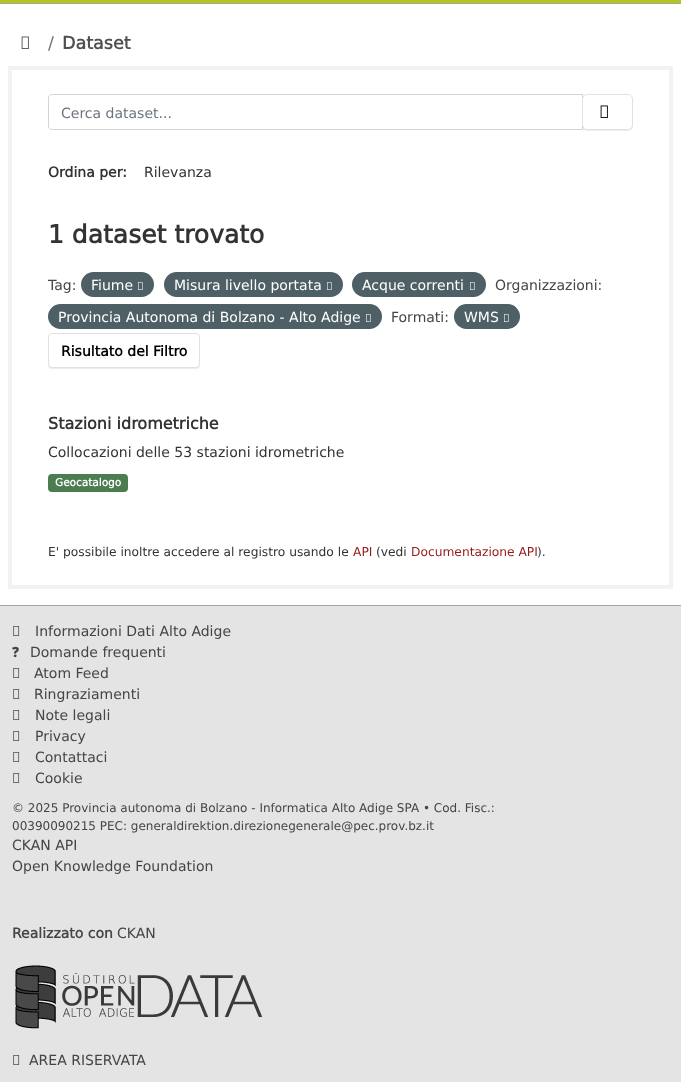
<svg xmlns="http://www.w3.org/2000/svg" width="681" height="1082">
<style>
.a{font:17.5px DejaVu Sans;fill:#6c757d}
.b{font:bold 17.5px DejaVu Sans;fill:#505050}
.c{font:14px DejaVu Sans;fill:#6c757d}
.d{font:bold 14px DejaVu Sans;fill:#333}
.e{font:14px DejaVu Sans;fill:#333}
.f{font:bold 25px DejaVu Sans;fill:#333}
.g{font:14px DejaVu Sans;fill:#454544}
.h{font:14px DejaVu Sans;fill:#fff}
.i{font:bold 14px DejaVu Sans;fill:#000}
.j{font:bold 16px DejaVu Sans;fill:#333}
.k{font:bold 10.5px DejaVu Sans;fill:#fff}
.l{font:12.25px DejaVu Sans;fill:#333}
.m{font:12.25px DejaVu Sans;fill:#96191a}
.n{font:900 14px Noto Sans;fill:#454544}
.o{font:12px DejaVu Sans;fill:#454544}
.p{font:bold 14px DejaVu Sans;fill:#454544}
</style>
<rect width="100%" height="100%" fill="#b4c420"/>
<path fill="#a4a5a5" d="M0 3h681v1H0z"/>
<path fill="#fff" d="M0 4h681v601H0z"/>
<image href="1.png" x="21" y="36" width="8" height="13"/>
<path fill="none" stroke="#f2f2f2" stroke-width="4" d="M10 68h661v519H10z"/>
<path fill="none" stroke="#ced4da" d="M52 94.5h530.5v35h-530.5c-2 0-3.5-1.5-3.5-3.5v-28c0-2 1.5-3.5 3.5-3.5z"/>
<rect fill="#00000012" filter="blur(0.5px)" x="582" y="95" width="51" height="36" rx="5"/>
<rect fill="#fff" stroke="#dee2e6" x="582.5" y="94.5" width="50" height="35" rx="4.5"/>
<image href="2.png" x="600" y="105" width="8" height="13"/>
<rect fill="#4e5f65" x="81" y="272" width="73" height="25" rx="12.5"/>
<image href="3.png" x="138" y="282" width="5" height="8"/>
<rect fill="#4e5f65" x="164" y="272" width="179" height="25" rx="12.5"/>
<image href="3.png" x="327" y="282" width="5" height="8"/>
<rect fill="#4e5f65" x="352" y="272" width="134" height="25" rx="12.5"/>
<image href="3.png" x="470" y="282" width="5" height="8"/>
<rect fill="#4e5f65" x="48" y="304" width="334" height="25" rx="12.5"/>
<image href="3.png" x="366" y="314" width="5" height="8"/>
<rect fill="#4e5f65" x="454" y="304" width="66" height="25" rx="12.5"/>
<image href="3.png" x="504" y="314" width="5" height="8"/>
<rect fill="#00000012" filter="blur(0.5px)" x="48" y="334" width="152" height="35" rx="4"/>
<rect fill="#fff" stroke="#dee2e6" x="48.5" y="333.5" width="151" height="34" rx="3.5"/>
<rect fill="#4b7d51" x="48" y="474" width="80" height="18" rx="4"/>
<path fill="#e4e4e5" d="M0 606h681v476H0z"/>
<path fill="#a4a5a5" d="M0 605h681v1H0z"/>
<image href="4.png" x="13" y="626" width="7" height="10"/>
<image href="4.png" x="13" y="668" width="7" height="10"/>
<image href="4.png" x="13" y="689" width="7" height="10"/>
<image href="4.png" x="13" y="710" width="7" height="10"/>
<image href="4.png" x="13" y="731" width="7" height="10"/>
<image href="4.png" x="13" y="752" width="7" height="10"/>
<image href="4.png" x="13" y="773" width="7" height="10"/>
<image href="5.png" x="15" y="965" width="248" height="64"/>
<image href="4.png" x="13" y="1055" width="7" height="10"/>
<text class="a" x="48" y="49">/</text>
<text class="b" x="62" y="49">Dataset</text>
<text class="c" x="61" y="118">Cerca dataset...</text>
<text class="d" x="48" y="177">Ordina per:</text>
<text class="e" x="144" y="177">Rilevanza</text>
<text class="f" x="48" y="243">1 dataset trovato</text>
<text class="g" x="48" y="290">Tag:</text>
<text class="h" x="91" y="290">Fiume</text>
<text class="h" x="174" y="290">Misura livello portata</text>
<text class="h" x="362" y="290">Acque correnti</text>
<text class="g" x="495" y="290">Organizzazioni:</text>
<text class="h" x="58" y="322">Provincia Autonoma di Bolzano - Alto Adige</text>
<text class="g" x="391" y="322">Formati:</text>
<text class="h" x="464" y="322">WMS</text>
<text class="i" x="61" y="356">Risultato del Filtro</text>
<text class="j" x="48" y="429">Stazioni idrometriche</text>
<text class="e" x="48" y="457">Collocazioni delle 53 stazioni idrometriche</text>
<text class="k" x="55" y="486">Geocatalogo</text>
<text class="l" x="48" y="556">E' possibile inoltre accedere al registro usando le</text>
<text class="m" x="353" y="556">API</text>
<text class="l" x="376" y="556">(vedi</text>
<text class="m" x="411" y="556">Documentazione API</text>
<text class="l" x="537" y="556">).</text>
<text class="g" x="35" y="636">Informazioni Dati Alto Adige</text>
<text class="n" x="12" y="657">?</text>
<text class="g" x="30" y="657">Domande frequenti</text>
<text class="g" x="34" y="678">Atom Feed</text>
<text class="g" x="34" y="699">Ringraziamenti</text>
<text class="g" x="35" y="720">Note legali</text>
<text class="g" x="35" y="741">Privacy</text>
<text class="g" x="35" y="762">Contattaci</text>
<text class="g" x="35" y="783">Cookie</text>
<text class="o" x="12" y="812">© 2025 Provincia autonoma di Bolzano - Informatica Alto Adige SPA • Cod. Fisc.:</text>
<text class="o" x="12" y="830">00390090215 PEC: generaldirektion.direzionegenerale@pec.prov.bz.it</text>
<text class="g" x="12" y="850">CKAN API</text>
<text class="g" x="12" y="871">Open Knowledge Foundation</text>
<text class="p" x="12" y="938">Realizzato con</text>
<text class="g" x="117" y="938">CKAN</text>
<text class="g" x="29" y="1065">AREA RISERVATA</text>
</svg>
